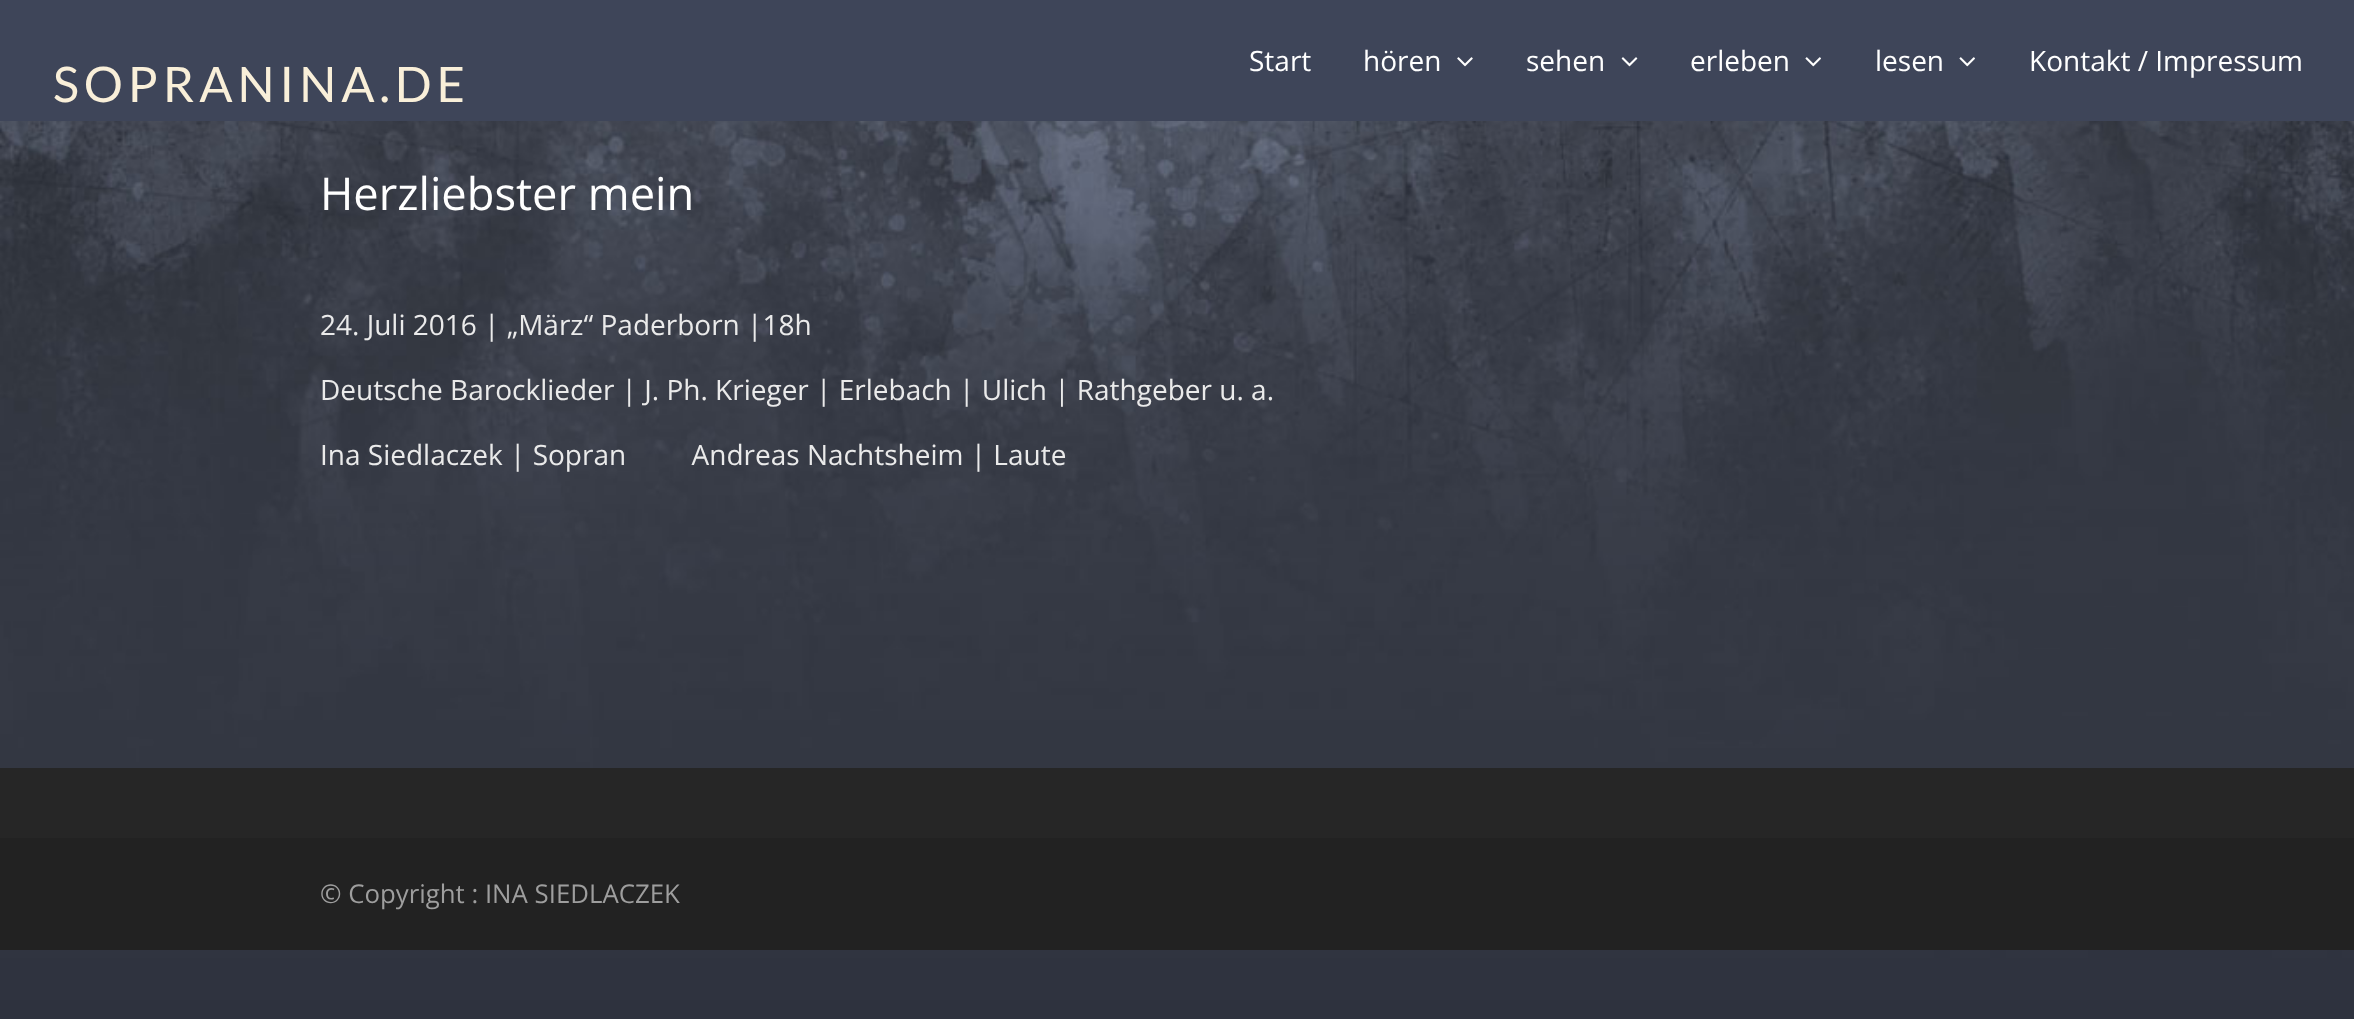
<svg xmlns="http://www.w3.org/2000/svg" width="2354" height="1019">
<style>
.a{font:49px Lato;letter-spacing:4.9px;fill:#f9efd9}
.b{font:28px Open Sans;fill:#fff}
.c{font:45.25px Open Sans;fill:#fff}
.d{font:28px Open Sans;fill:#eaeaea}
.e{font:25.8px Open Sans;fill:#9e9e9e}
</style>
<rect width="100%" height="100%" fill="#fff"/>
<image href="1.png" x="0" y="121" width="2354" height="898"/>
<path fill="#3e4559" d="M0 0h2354v121H0z"/>
<image href="2.png" x="1457" y="57" width="16" height="10"/>
<image href="3.png" x="1621" y="57" width="17" height="10"/>
<image href="4.png" x="1805" y="57" width="16" height="10"/>
<image href="4.png" x="1959" y="57" width="16" height="10"/>
<path fill="#262626" d="M0 768h2354v70H0z"/>
<path fill="#222" d="M0 838h2354v112H0z"/>
<text class="a" x="53" y="102">SOPRANINA.DE</text>
<text class="b" x="1249" y="71">Start</text>
<text class="b" x="1363" y="71">hören</text>
<text class="b" x="1526" y="71">sehen</text>
<text class="b" x="1690" y="71">erleben</text>
<text class="b" x="1875" y="71">lesen</text>
<text class="b" x="2029" y="71">Kontakt / Impressum</text>
<text class="c" x="320" y="210">Herzliebster mein</text>
<text class="d" x="320" y="335">24. Juli 2016 | „März“ Paderborn |18h</text>
<text class="d" x="320" y="400">Deutsche Barocklieder | J. Ph. Krieger | Erlebach | Ulich | Rathgeber u. a.</text>
<text class="d" xml:space="preserve" x="320" y="465">Ina Siedlaczek | Sopran         Andreas Nachtsheim | Laute</text>
<text class="e" x="320" y="903">© Copyright : INA SIEDLACZEK</text>
</svg>
